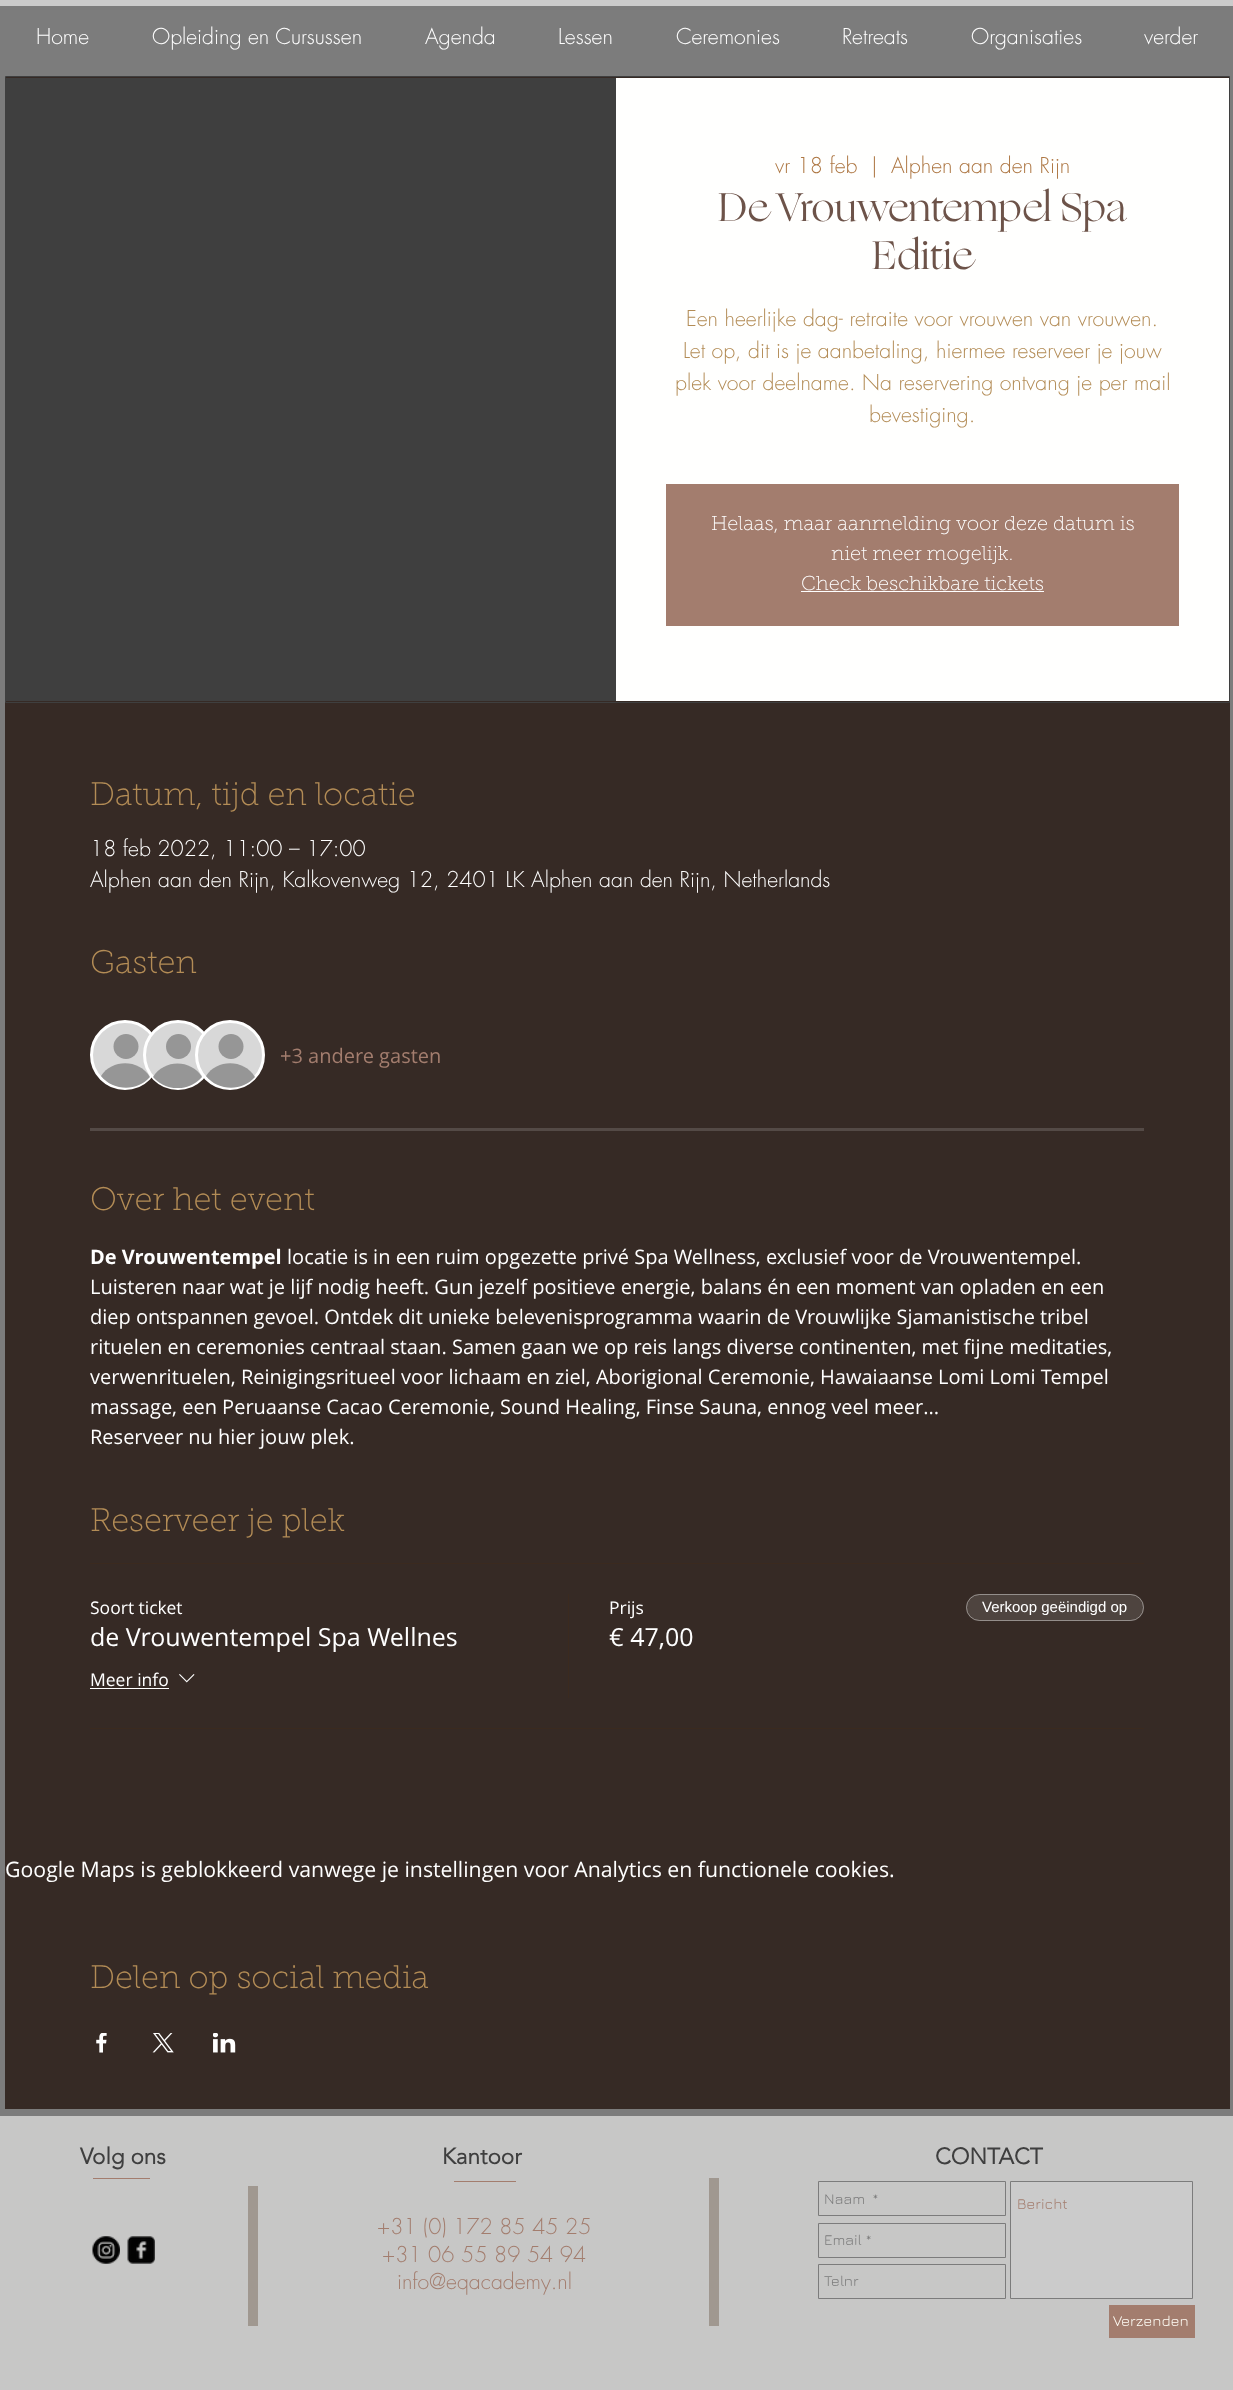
<svg xmlns="http://www.w3.org/2000/svg" width="1233" height="2390">
<style>
.a{font:300 21.25px futura;fill:#fff}
.b{font:300 21.25px futura;fill:#ad7642}
.c{font:40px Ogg;fill:#6d5349}
.d{font:300 21.25px futura;fill:#b38c56}
.e{font:100 20px 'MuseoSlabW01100';fill:#fff}
.f{font:100 32.5px 'MuseoSlabW01100';fill:#b38c56}
.g{font:20px Open Sans;fill:#a37d6e}
.h{font:bold 20px Open Sans;fill:#fff}
.i{font:20px Open Sans;fill:#fff}
.j{font:17.5px Open Sans;fill:#fff}
.k{font:25px Open Sans;fill:#fff}
.l{font:15px Liberation Sans;fill:#fff}
.m{font:21.25px Open Sans;fill:#fff}
.n{font:bold 22.5px 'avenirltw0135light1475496';fill:#3f3f3f}
.o{font:300 21.25px futura;fill:#a37d6e}
.p{font:15px Jura;fill:#7c7c7c}
.q{font:15px Jura;fill:#a37d6e}
.r{font:15px Jura;fill:#fffdf5}
</style>
<defs>
<clipPath id="clip1"><path d="M145 1023h65v65H145z"/></clipPath>
</defs>
<rect width="100%" height="100%" fill="#7c7c7c"/>
<path fill="#cbcbcb" d="M0 0h1233v6H0z"/>
<path fill="#362a25" d="M5 77h1225v2032H5z"/>
<path fill="none" stroke="#3f3f3f" d="M5.5 76.5h1224v626H5.5z"/>
<path fill="#3f3f3f" d="M6 78h610v623H6z"/>
<path fill="#fffffe" d="M616 78h613v623H616z"/>
<path fill="#a37d6e" d="M666 484h513v142H666z"/>
<path fill="#fff" d="M801 591h243v1H801z"/>
<circle fill="#d8d8d8" stroke="#fff" stroke-width="3" cx="125" cy="1055" r="33.5"/>
<circle fill="#969696" cx="126" cy="1046.5" r="12.5"/>
<path fill="#969696" d="M150 1077c-13 15-37 14-49-1c11-17 38-17 49 1z"/>
<circle fill="#d8d8d8" stroke="#fff" stroke-width="3" cx="178" cy="1055" r="33.5"/>
<circle fill="#969696" cx="178.5" cy="1046.5" r="12.5"/>
<g clip-path="url(#clip1)">
<path fill="#969696" d="M202 1077c-13 15-36 15-49 0c11-18 38-18 49 0z"/>
</g>
<circle fill="#d8d8d8" stroke="#fff" stroke-width="3" cx="230" cy="1055" r="33.5"/>
<circle fill="#969696" cx="231" cy="1046.5" r="12.5"/>
<path fill="#969696" d="M255 1077c-13 15-37 14-49-1c11-17 38-17 49 1z"/>
<path fill="#544a46" d="M90 1128h1054v3H90z"/>
<path fill="#3b2a1f" d="M90 1563h1054v1H90z"/>
<path fill="#3b2a1f" d="M90 1728h1054v1H90z"/>
<path fill="#fff" d="M90 1688h79v1H90z"/>
<image href="1.png" x="179" y="1674" width="16" height="9"/>
<path fill="#3b2a1f" d="M568 1594h1v104H568z"/>
<rect fill="#4e443f" x="966" y="1594" width="178" height="27" rx="13.5"/>
<rect fill="none" stroke="#ffffff66" x="966.5" y="1594.5" width="177" height="26" rx="13"/>
<image href="2.png" x="96" y="2033" width="11" height="20"/>
<image href="3.png" x="152" y="2033" width="22" height="20"/>
<image href="4.png" x="213" y="2033" width="23" height="20"/>
<path fill="#c7c7c6" d="M0 2116h1233v274H0z"/>
<path fill="#a37d6e" d="M93 2178h57v1H93z"/>
<path fill="#a37d6e" d="M454 2181h62v1H454z"/>
<path fill="#a09890" d="M709 2178h10v148H709z"/>
<image href="5.png" x="92" y="2236" width="28" height="28"/>
<image href="6.png" x="127" y="2236" width="28" height="28"/>
<path fill="#a09890" d="M248 2186h10v140H248z"/>
<path fill="none" stroke="#7c7c7c" d="M818.5 2181.5h187v34H818.5z"/>
<path fill="#cbcbcb" stroke="#7c7c7c" d="M1010.5 2181.5h182v117H1010.5z"/>
<path fill="none" stroke="#7c7c7c" d="M818.5 2223.5h187v34H818.5z"/>
<path fill="none" stroke="#7c7c7c" d="M818.5 2264.5h187v34H818.5z"/>
<path fill="#a37d6e" d="M1109 2305h86v33H1109z"/>
<text class="a" x="36" y="44">Home</text>
<text class="a" x="152" y="44">Opleiding en Cursussen</text>
<text class="a" x="425" y="44">Agenda</text>
<text class="a" x="558" y="44">Lessen</text>
<text class="a" x="676" y="44">Ceremonies</text>
<text class="a" x="842" y="44">Retreats</text>
<text class="a" x="971" y="44">Organisaties</text>
<text class="a" x="1144" y="44">verder</text>
<text class="b" x="775" y="173">vr 18 feb</text>
<text class="b" x="871" y="173">|</text>
<text class="b" x="891" y="173">Alphen aan den Rijn</text>
<text class="c" x="718" y="221">De Vrouwentempel Spa</text>
<text class="c" x="872" y="269">Editie</text>
<text class="d" x="686" y="326">Een heerlijke dag- retraite voor vrouwen van vrouwen.</text>
<text class="d" x="683" y="358">Let op, dit is je aanbetaling, hiermee reserveer je jouw</text>
<text class="d" x="675" y="390">plek voor deelname. Na reservering ontvang je per mail</text>
<text class="d" x="869" y="422">bevestiging.</text>
<text class="e" x="711" y="530">Helaas, maar aanmelding voor deze datum is</text>
<text class="e" x="831" y="560">niet meer mogelijk.</text>
<text class="e" x="801" y="590">Check beschikbare tickets</text>
<text class="f" x="90" y="805">Datum, tijd en locatie</text>
<text class="a" x="90" y="856">18 feb 2022, 11:00 – 17:00</text>
<text class="a" x="90" y="887">Alphen aan den Rijn, Kalkovenweg 12, 2401 LK Alphen aan den Rijn, Netherlands</text>
<text class="f" x="90" y="973">Gasten</text>
<text class="g" x="280" y="1063">+3 andere gasten</text>
<text class="f" x="90" y="1210">Over het event</text>
<text class="h" x="90" y="1264">De Vrouwentempel</text>
<text class="i" x="287" y="1264">locatie is in een ruim opgezette privé Spa Wellness, exclusief voor de Vrouwentempel.</text>
<text class="i" x="90" y="1294">Luisteren naar wat je lijf nodig heeft. Gun jezelf positieve energie, balans én een moment van opladen en een</text>
<text class="i" x="90" y="1324">diep ontspannen gevoel. Ontdek dit unieke belevenisprogramma waarin de Vrouwlijke Sjamanistische tribel</text>
<text class="i" x="90" y="1354">rituelen en ceremonies centraal staan. Samen gaan we op reis langs diverse continenten, met fijne meditaties,</text>
<text class="i" x="90" y="1384">verwenrituelen, Reinigingsritueel voor lichaam en ziel, Aborigional Ceremonie, Hawaiaanse Lomi Lomi Tempel</text>
<text class="i" x="90" y="1414">massage, een Peruaanse Cacao Ceremonie, Sound Healing, Finse Sauna, ennog veel meer...</text>
<text class="i" x="90" y="1444">Reserveer nu hier jouw plek.</text>
<text class="f" x="90" y="1531">Reserveer je plek</text>
<text class="j" x="90" y="1614">Soort ticket</text>
<text class="k" x="90" y="1646">de Vrouwentempel Spa Wellnes</text>
<text class="j" x="90" y="1686">Meer info</text>
<text class="j" x="609" y="1614">Prijs</text>
<text class="k" x="609" y="1646">€ 47,00</text>
<text class="l" x="982" y="1612">Verkoop geëindigd op</text>
<text class="m" x="5" y="1877">Google Maps is geblokkeerd vanwege je instellingen voor Analytics en functionele cookies.</text>
<text class="f" x="90" y="1988">Delen op social media</text>
<text class="n" x="80" y="2164">Volg ons</text>
<text class="n" x="442" y="2164">Kantoor</text>
<text class="n" x="935" y="2164">CONTACT</text>
<text class="o" x="377" y="2234">+31 (0) 172 85 45 25</text>
<text class="o" x="382" y="2262">+31 06 55 89 54 94</text>
<text class="o" x="397" y="2289">info@eqacademy.nl</text>
<text class="p" xml:space="preserve" x="824" y="2204">Naam  *</text>
<text class="q" x="1017" y="2209">Bericht</text>
<text class="p" x="824" y="2245">Email *</text>
<text class="p" x="824" y="2286">Telnr</text>
<text class="r" x="1113" y="2326">Verzenden</text>
</svg>
